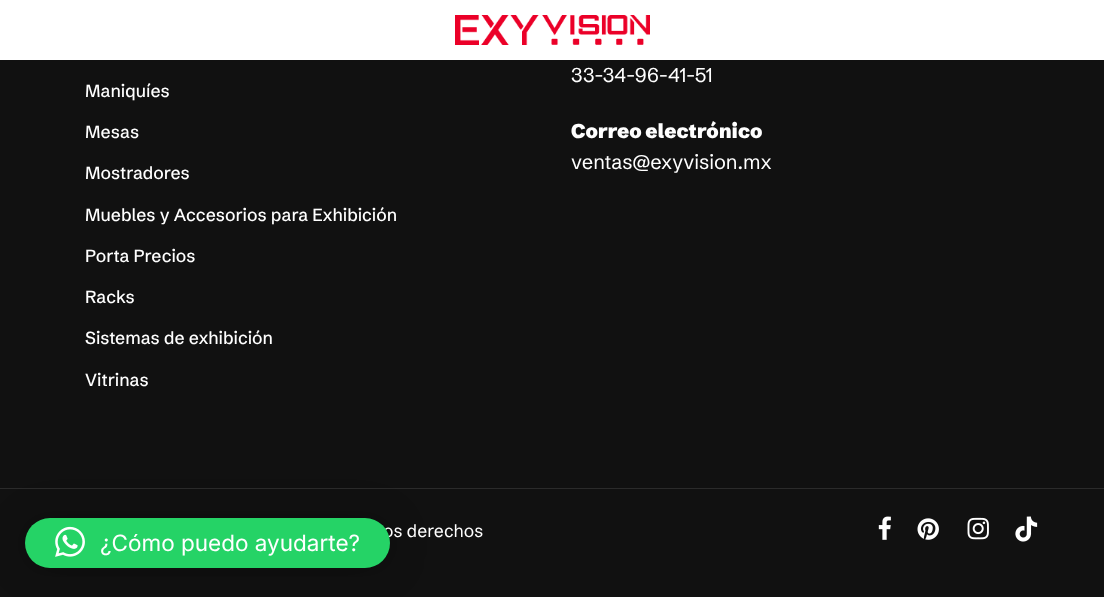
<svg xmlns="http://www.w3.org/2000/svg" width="1104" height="597">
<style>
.a{font:500 17.5px Schibsted Grotesk;fill:#fff}
.b{font:20px Schibsted Grotesk;fill:#fff}
.c{font:900 20px Schibsted Grotesk;fill:#fff}
.d{font:17.5px Schibsted Grotesk;fill:#fff}
.e{font:22.5px Inter;fill:#fff}
</style>
<rect width="100%" height="100%" fill="#111"/>
<path fill="#fff" d="M0 0h1104v60H0z"/>
<image href="1.png" x="455" y="15" width="195" height="30"/>
<path fill="#2b2b2b" d="M0 488h1104v1H0z"/>
<image href="2.png" x="878" y="516" width="13" height="24"/>
<image href="3.png" x="917" y="518" width="22" height="22"/>
<image href="4.png" x="967" y="517" width="22" height="23"/>
<image href="5.png" x="1015" y="516" width="23" height="26"/>
<rect fill="#00000029" filter="blur(20px)" x="25" y="520" width="365" height="50" rx="25"/>
<rect fill="#0000000f" filter="blur(4px)" x="25" y="519" width="365" height="50" rx="25"/>
<text class="a" x="85" y="97">Maniquíes</text>
<text class="a" x="85" y="138">Mesas</text>
<text class="a" x="85" y="179">Mostradores</text>
<text class="a" x="85" y="221">Muebles y Accesorios para Exhibición</text>
<text class="a" x="85" y="262">Porta Precios</text>
<text class="a" x="85" y="303">Racks</text>
<text class="a" x="85" y="344">Sistemas de exhibición</text>
<text class="a" x="85" y="386">Vitrinas</text>
<text class="b" x="571" y="82">33-34-96-41-51</text>
<text class="c" x="571" y="138">Correo electrónico</text>
<text class="b" x="571" y="169">ventas@exyvision.mx</text>
<text class="d" x="383" y="537">os derechos</text>
<rect fill="#25d366" x="25" y="518" width="365" height="50" rx="25"/>
<image href="6.png" x="55" y="526" width="30" height="31"/>
<text class="e" x="100" y="551">¿Cómo puedo ayudarte?</text>
</svg>
